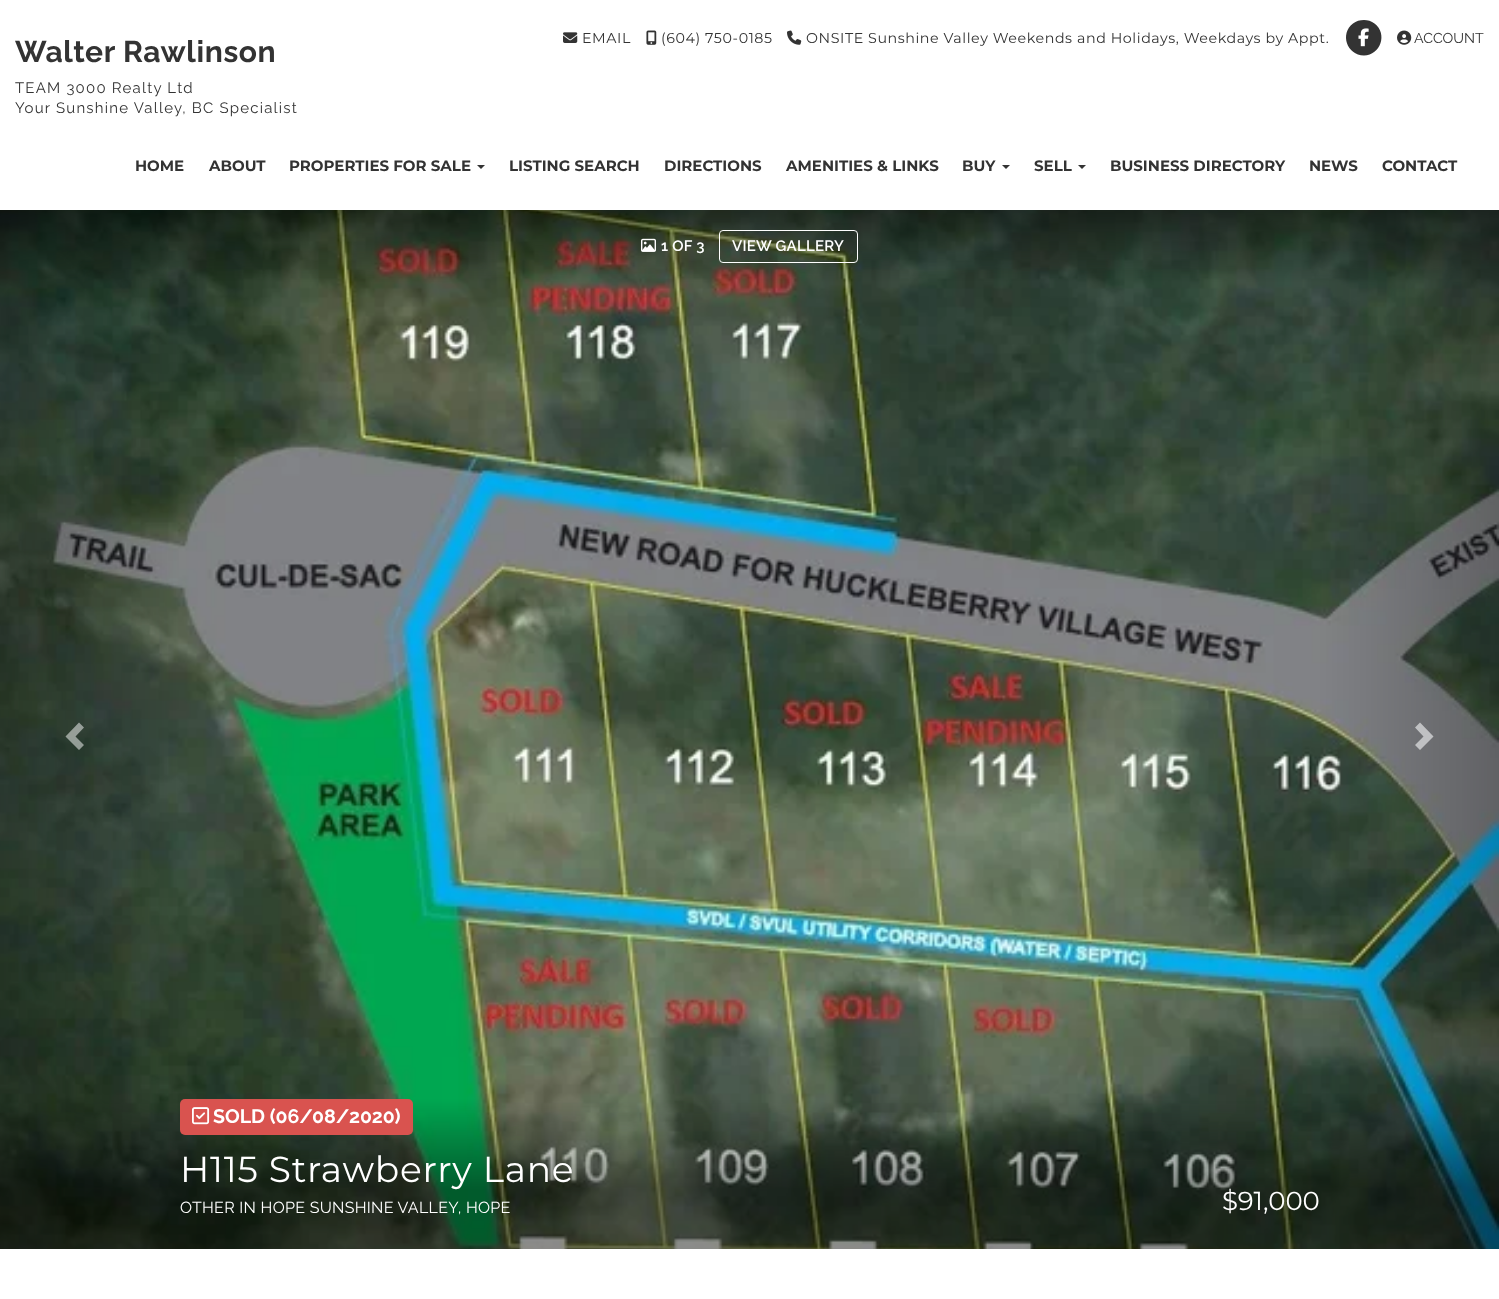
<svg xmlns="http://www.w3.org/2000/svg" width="1499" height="1299">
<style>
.a{font:bold 30px Raleway;letter-spacing:0.6px;fill:#333}
.b{font:15px Raleway;letter-spacing:1.2px;fill:#333}
.c{font:14.25px Montserrat;letter-spacing:0.57px;fill:#333}
.d{font:14.25px Raleway;fill:#333}
.e{font:bold 15px Montserrat;fill:#333}
.f{font:600 15px Raleway;letter-spacing:0.25px;fill:#fff}
.g{font:bold 19.5px Raleway;fill:#fff}
.h{font:36px Montserrat;letter-spacing:0.75px;fill:#fff}
.i{font:16px Raleway;letter-spacing:0.3px;fill:#fff}
.j{font:26px Montserrat;fill:#fff}
</style>
<rect width="100%" height="100%" fill="#fff"/>
<image href="1.png" x="563" y="32" width="15" height="11"/>
<image href="2.png" x="646" y="30" width="11" height="15"/>
<image href="3.png" x="787" y="30" width="15" height="15"/>
<path fill="#333" d="M1364 55.5c16.5-.5 24-21.5 10.5-32c-3-2.5-7-3.5-10.5-3.5c-4 0-8 1-11 3.5c-13.5 10.5-6 31.5 11 32z"/>
<image href="4.png" x="1358" y="28" width="11" height="19"/>
<image href="5.png" x="1397" y="30" width="15" height="15"/>
<path fill="#333" d="M477 165h8l-4 4z"/>
<path fill="#333" d="M1002 165h8l-4 4z"/>
<path fill="#333" d="M1078 165h8l-4 4z"/>
<image href="6.png" x="0" y="210" width="1499" height="1039"/>
<image href="7.png" x="641" y="238" width="15" height="14"/>
<rect fill="none" stroke="#fff" x="719.5" y="230.5" width="138" height="32" rx="3.5"/>
<path fill="#ffffff80" d="M84 727.5l-8.5 9l8.5 8.5l-5 5l-13.5-13.5l13.5-14z"/>
<path fill="#c0c1c3" d="M1433.5 736.5l-13.5 13.5l-5-5l8.5-8.5l-8.5-9l5-5z"/>
<rect fill="#d9534f" x="180" y="1099" width="233" height="36" rx="5"/>
<image href="8.png" x="192" y="1107" width="18" height="18"/>
<text class="a" x="15" y="62">Walter Rawlinson</text>
<text class="b" x="15" y="93">TEAM 3000 Realty Ltd</text>
<text class="b" x="15" y="113">Your Sunshine Valley, BC Specialist</text>
<text class="c" x="582" y="43">EMAIL</text>
<text class="c" x="661" y="43">(604) 750-0185</text>
<text class="c" x="806" y="43">ONSITE Sunshine Valley Weekends and Holidays, Weekdays by Appt.</text>
<text class="d" x="1414" y="43">ACCOUNT</text>
<text class="e" x="135" y="171">HOME</text>
<text class="e" x="209" y="171">ABOUT</text>
<text class="e" x="289" y="171">PROPERTIES FOR SALE</text>
<text class="e" x="509" y="171">LISTING SEARCH</text>
<text class="e" x="664" y="171">DIRECTIONS</text>
<text class="e" x="786" y="171">AMENITIES &amp; LINKS</text>
<text class="e" x="962" y="171">BUY</text>
<text class="e" x="1034" y="171">SELL</text>
<text class="e" x="1110" y="171">BUSINESS DIRECTORY</text>
<text class="e" x="1309" y="171">NEWS</text>
<text class="e" x="1382" y="171">CONTACT</text>
<text class="f" x="661" y="251">1 OF 3</text>
<text class="f" x="732" y="251">VIEW GALLERY</text>
<text class="g" x="213" y="1123">SOLD (06/08/2020)</text>
<text class="h" x="180" y="1182">H115 Strawberry Lane</text>
<text class="i" x="180" y="1213">OTHER IN HOPE SUNSHINE VALLEY, HOPE</text>
<text class="j" x="1222" y="1210">$91,000</text>
</svg>
